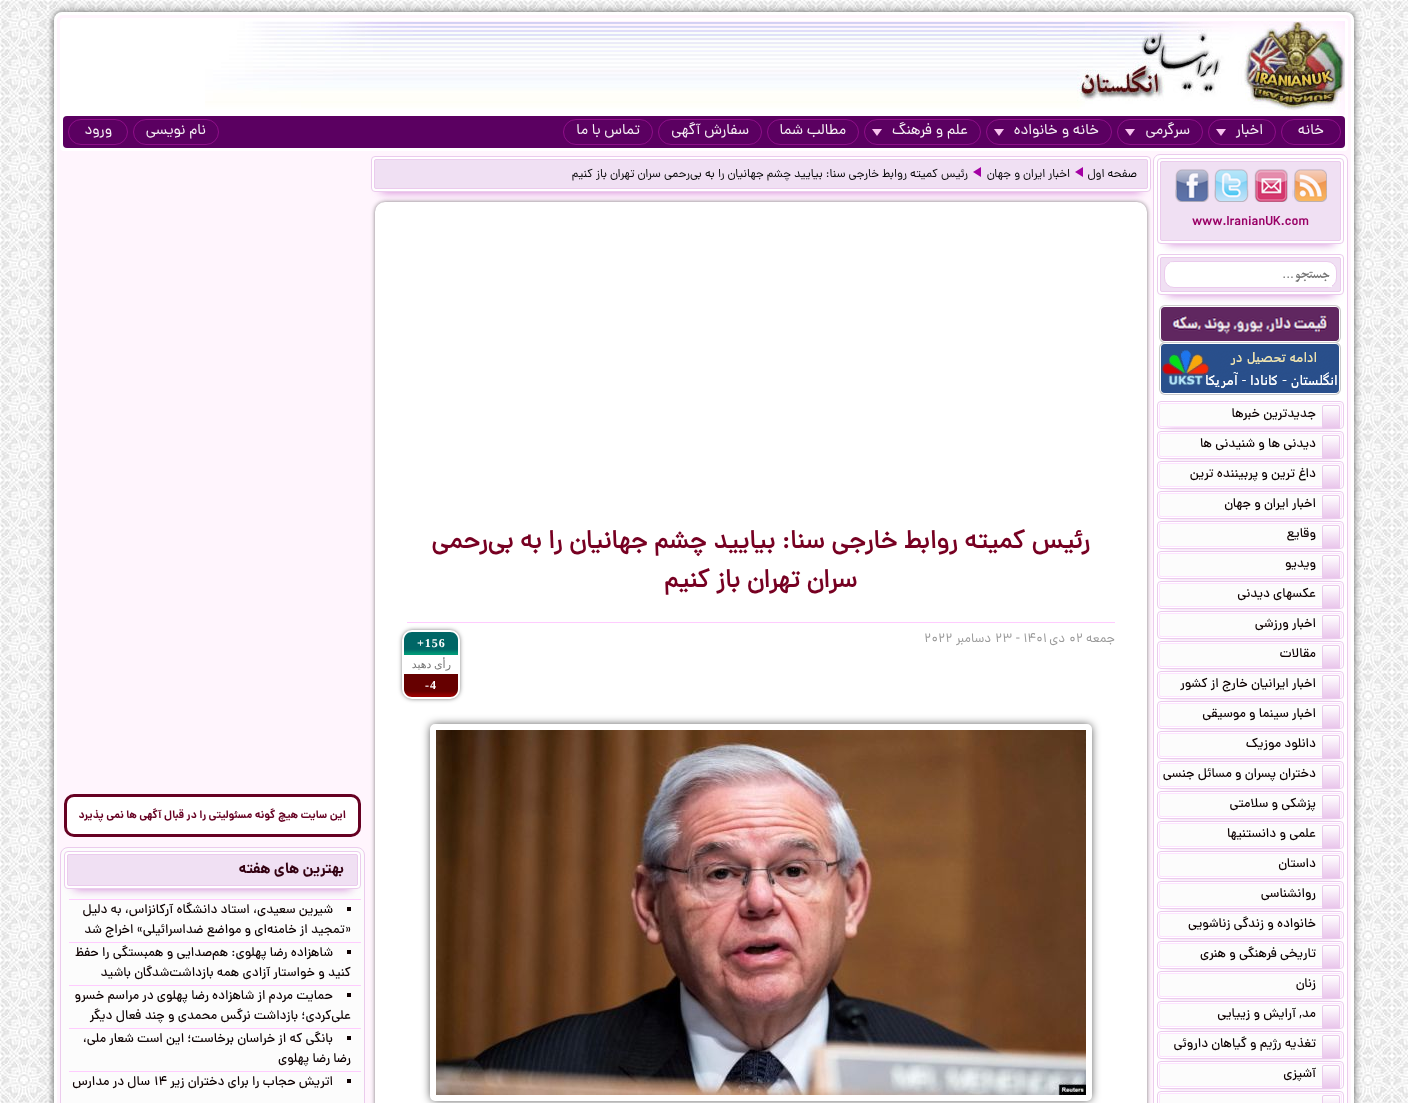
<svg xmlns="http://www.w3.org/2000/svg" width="1408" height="1103">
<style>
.a{font:15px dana;direction:rtl;fill:#f7f2f7}
.b{font:bold 13px dana;fill:#906}
.c{font:bold 14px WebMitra;direction:rtl;fill:#777}
.d{font:14px Liberation Sans;direction:rtl;fill:#777}
.e{font:500 13px dana;direction:rtl;fill:#0d0101}
.f{font:12px dana;direction:rtl;fill:#000}
.g{font:bold 26px dana;direction:rtl;fill:#702}
.h{font:13px dana;direction:rtl;fill:#999}
.i{font:13px dana;fill:#999}
.j{font:bold 12px Liberation Serif;letter-spacing:1px;fill:#fff}
.k{font:11px DejaVu Sans;direction:rtl;fill:#777}
.l{font:bold 11px 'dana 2';direction:rtl;fill:#602}
.m{font:bold 15px 'dana 2';direction:rtl;fill:#301}
.n{font:500 13px dana;fill:#0d0101}
</style>
<defs>
<clipPath id="clip1"><path d="M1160 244h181v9H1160z"/></clipPath>
<clipPath id="clip2"><rect x="1322" y="405" width="18" height="24" rx="2"/></clipPath>
<linearGradient id="g1" gradientUnits="userSpaceOnUse" x1="1331" y1="406" x2="1331" y2="428"><stop offset="0" stop-color="#fff"/><stop offset="1" stop-color="#e9c5eb"/></linearGradient>
<clipPath id="clip3"><rect x="1322" y="435" width="18" height="24" rx="2"/></clipPath>
<linearGradient id="g2" gradientUnits="userSpaceOnUse" x1="1331" y1="436" x2="1331" y2="458"><stop offset="0" stop-color="#fff"/><stop offset="1" stop-color="#e9c5eb"/></linearGradient>
<clipPath id="clip4"><rect x="1322" y="465" width="18" height="24" rx="2"/></clipPath>
<linearGradient id="g3" gradientUnits="userSpaceOnUse" x1="1331" y1="466" x2="1331" y2="488"><stop offset="0" stop-color="#fff"/><stop offset="1" stop-color="#e9c5eb"/></linearGradient>
<clipPath id="clip5"><rect x="1322" y="495" width="18" height="24" rx="2"/></clipPath>
<linearGradient id="g4" gradientUnits="userSpaceOnUse" x1="1331" y1="496" x2="1331" y2="518"><stop offset="0" stop-color="#fff"/><stop offset="1" stop-color="#e9c5eb"/></linearGradient>
<clipPath id="clip6"><rect x="1322" y="525" width="18" height="24" rx="2"/></clipPath>
<linearGradient id="g5" gradientUnits="userSpaceOnUse" x1="1331" y1="526" x2="1331" y2="548"><stop offset="0" stop-color="#fff"/><stop offset="1" stop-color="#e9c5eb"/></linearGradient>
<clipPath id="clip7"><rect x="1322" y="555" width="18" height="24" rx="2"/></clipPath>
<linearGradient id="g6" gradientUnits="userSpaceOnUse" x1="1331" y1="556" x2="1331" y2="578"><stop offset="0" stop-color="#fff"/><stop offset="1" stop-color="#e9c5eb"/></linearGradient>
<clipPath id="clip8"><rect x="1322" y="585" width="18" height="24" rx="2"/></clipPath>
<linearGradient id="g7" gradientUnits="userSpaceOnUse" x1="1331" y1="586" x2="1331" y2="608"><stop offset="0" stop-color="#fff"/><stop offset="1" stop-color="#e9c5eb"/></linearGradient>
<clipPath id="clip9"><rect x="1322" y="615" width="18" height="24" rx="2"/></clipPath>
<linearGradient id="g8" gradientUnits="userSpaceOnUse" x1="1331" y1="616" x2="1331" y2="638"><stop offset="0" stop-color="#fff"/><stop offset="1" stop-color="#e9c5eb"/></linearGradient>
<clipPath id="clip10"><rect x="1322" y="645" width="18" height="24" rx="2"/></clipPath>
<linearGradient id="g9" gradientUnits="userSpaceOnUse" x1="1331" y1="646" x2="1331" y2="668"><stop offset="0" stop-color="#fff"/><stop offset="1" stop-color="#e9c5eb"/></linearGradient>
<clipPath id="clip11"><rect x="1322" y="675" width="18" height="24" rx="2"/></clipPath>
<linearGradient id="g10" gradientUnits="userSpaceOnUse" x1="1331" y1="676" x2="1331" y2="698"><stop offset="0" stop-color="#fff"/><stop offset="1" stop-color="#e9c5eb"/></linearGradient>
<clipPath id="clip12"><rect x="1322" y="705" width="18" height="24" rx="2"/></clipPath>
<linearGradient id="g11" gradientUnits="userSpaceOnUse" x1="1331" y1="706" x2="1331" y2="728"><stop offset="0" stop-color="#fff"/><stop offset="1" stop-color="#e9c5eb"/></linearGradient>
<clipPath id="clip13"><rect x="1322" y="735" width="18" height="24" rx="2"/></clipPath>
<linearGradient id="g12" gradientUnits="userSpaceOnUse" x1="1331" y1="736" x2="1331" y2="758"><stop offset="0" stop-color="#fff"/><stop offset="1" stop-color="#e9c5eb"/></linearGradient>
<clipPath id="clip14"><rect x="1322" y="765" width="18" height="24" rx="2"/></clipPath>
<linearGradient id="g13" gradientUnits="userSpaceOnUse" x1="1331" y1="766" x2="1331" y2="788"><stop offset="0" stop-color="#fff"/><stop offset="1" stop-color="#e9c5eb"/></linearGradient>
<clipPath id="clip15"><rect x="1322" y="795" width="18" height="24" rx="2"/></clipPath>
<linearGradient id="g14" gradientUnits="userSpaceOnUse" x1="1331" y1="796" x2="1331" y2="818"><stop offset="0" stop-color="#fff"/><stop offset="1" stop-color="#e9c5eb"/></linearGradient>
<clipPath id="clip16"><rect x="1322" y="825" width="18" height="24" rx="2"/></clipPath>
<linearGradient id="g15" gradientUnits="userSpaceOnUse" x1="1331" y1="826" x2="1331" y2="848"><stop offset="0" stop-color="#fff"/><stop offset="1" stop-color="#e9c5eb"/></linearGradient>
<clipPath id="clip17"><rect x="1322" y="855" width="18" height="24" rx="2"/></clipPath>
<linearGradient id="g16" gradientUnits="userSpaceOnUse" x1="1331" y1="856" x2="1331" y2="878"><stop offset="0" stop-color="#fff"/><stop offset="1" stop-color="#e9c5eb"/></linearGradient>
<clipPath id="clip18"><rect x="1322" y="885" width="18" height="24" rx="2"/></clipPath>
<linearGradient id="g17" gradientUnits="userSpaceOnUse" x1="1331" y1="886" x2="1331" y2="908"><stop offset="0" stop-color="#fff"/><stop offset="1" stop-color="#e9c5eb"/></linearGradient>
<clipPath id="clip19"><rect x="1322" y="915" width="18" height="24" rx="2"/></clipPath>
<linearGradient id="g18" gradientUnits="userSpaceOnUse" x1="1331" y1="916" x2="1331" y2="938"><stop offset="0" stop-color="#fff"/><stop offset="1" stop-color="#e9c5eb"/></linearGradient>
<clipPath id="clip20"><rect x="1322" y="945" width="18" height="24" rx="2"/></clipPath>
<linearGradient id="g19" gradientUnits="userSpaceOnUse" x1="1331" y1="946" x2="1331" y2="968"><stop offset="0" stop-color="#fff"/><stop offset="1" stop-color="#e9c5eb"/></linearGradient>
<clipPath id="clip21"><rect x="1322" y="975" width="18" height="24" rx="2"/></clipPath>
<linearGradient id="g20" gradientUnits="userSpaceOnUse" x1="1331" y1="976" x2="1331" y2="998"><stop offset="0" stop-color="#fff"/><stop offset="1" stop-color="#e9c5eb"/></linearGradient>
<clipPath id="clip22"><rect x="1322" y="1005" width="18" height="24" rx="2"/></clipPath>
<linearGradient id="g21" gradientUnits="userSpaceOnUse" x1="1331" y1="1006" x2="1331" y2="1028"><stop offset="0" stop-color="#fff"/><stop offset="1" stop-color="#e9c5eb"/></linearGradient>
<clipPath id="clip23"><rect x="1322" y="1035" width="18" height="24" rx="2"/></clipPath>
<linearGradient id="g22" gradientUnits="userSpaceOnUse" x1="1331" y1="1036" x2="1331" y2="1058"><stop offset="0" stop-color="#fff"/><stop offset="1" stop-color="#e9c5eb"/></linearGradient>
<clipPath id="clip24"><rect x="1322" y="1065" width="18" height="24" rx="2"/></clipPath>
<linearGradient id="g23" gradientUnits="userSpaceOnUse" x1="1331" y1="1066" x2="1331" y2="1088"><stop offset="0" stop-color="#fff"/><stop offset="1" stop-color="#e9c5eb"/></linearGradient>
<linearGradient id="g24" gradientUnits="userSpaceOnUse" x1="1331" y1="1096" x2="1331" y2="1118"><stop offset="0" stop-color="#fff"/><stop offset="1" stop-color="#e9c5eb"/></linearGradient>
<linearGradient id="g25" gradientUnits="userSpaceOnUse" x1="431" y1="632" x2="431" y2="655"><stop offset="0" stop-color="#066"/><stop offset="0.75" stop-color="#066"/><stop offset="0.95" stop-color="#097"/><stop offset="1" stop-color="#097"/></linearGradient>
<linearGradient id="g26" gradientUnits="userSpaceOnUse" x1="431" y1="674" x2="431" y2="697"><stop offset="0" stop-color="#600"/><stop offset="0.75" stop-color="#600"/><stop offset="0.95" stop-color="#900"/><stop offset="1" stop-color="#900"/></linearGradient>
</defs>
<rect width="100%" height="100%" fill="#fff"/>
<image href="1.png" x="0" y="0" width="1408" height="1103"/>
<rect fill="#000000bf" filter="blur(4px)" x="55" y="13" width="1298" height="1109" rx="7"/>
<rect fill="#fff5fd" stroke="#fff" stroke-width="3" x="55.5" y="13.5" width="1297" height="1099" rx="6.5"/>
<rect fill="#fff" x="60" y="18" width="1288" height="133" rx="4"/>
<image href="2.png" x="205" y="21" width="1140" height="94"/>
<rect fill="#5b0061" x="63" y="116" width="1282" height="32" rx="4"/>
<rect fill="none" stroke="#8f0f89" x="1281.5" y="119.5" width="59" height="25" rx="12.5"/>
<rect fill="none" stroke="#8f0f89" x="1208.5" y="119.5" width="67" height="25" rx="12.5"/>
<path fill="#f7c2ee" d="M1216 129h10l-5 7z"/>
<rect fill="none" stroke="#8f0f89" x="1117.5" y="119.5" width="85" height="25" rx="12.5"/>
<path fill="#f7c2ee" d="M1125 129h10l-5 7z"/>
<rect fill="none" stroke="#8f0f89" x="986.5" y="119.5" width="125" height="25" rx="12.5"/>
<path fill="#f7c2ee" d="M994 129h10l-5 7z"/>
<rect fill="none" stroke="#8f0f89" x="864.5" y="119.5" width="116" height="25" rx="12.5"/>
<path fill="#f7c2ee" d="M872 129h10l-5 7z"/>
<rect fill="none" stroke="#8f0f89" x="767.5" y="119.5" width="91" height="25" rx="12.5"/>
<rect fill="none" stroke="#8f0f89" x="658.5" y="119.5" width="103" height="25" rx="12.5"/>
<rect fill="none" stroke="#8f0f89" x="563.5" y="119.5" width="89" height="25" rx="12.5"/>
<rect fill="none" stroke="#8f0f89" x="133.5" y="119.5" width="85" height="25" rx="12.5"/>
<rect fill="none" stroke="#8f0f89" x="68.5" y="119.5" width="59" height="25" rx="12.5"/>
<path fill="#a205ac80" filter="blur(5px)" d="M381 176h760v16H381z"/>
<rect fill="#000000bf" filter="blur(2.5px)" x="376" y="203" width="770" height="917" rx="9"/>
<rect fill="#fff" stroke="#ebcbed" x="1153.5" y="154.5" width="194" height="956" rx="6.5"/>
<g clip-path="url(#clip1)">
<path fill="#a205ac80" filter="blur(5px)" d="M1167 178h167v66H1167z"/>
</g>
<rect fill="none" stroke="#ebcbed" x="1157.5" y="158.5" width="186" height="85" rx="3.5"/>
<rect fill="#f0e0f3" stroke="#ebcbed" x="1160.5" y="161.5" width="180" height="79" rx="1.5"/>
<image href="3.png" x="1292" y="169" width="35" height="33"/>
<image href="4.png" x="1254" y="169" width="34" height="33"/>
<image href="5.png" x="1214" y="169" width="35" height="33"/>
<image href="6.png" x="1175" y="169" width="34" height="33"/>
<path fill="#a205ac80" filter="blur(5px)" d="M1167 274h167v21H1167z"/>
<rect fill="#fff" stroke="#ebcbed" x="1157.5" y="254.5" width="186" height="40" rx="3.5"/>
<rect fill="#f0e0f3" stroke="#ebcbed" x="1160.5" y="257.5" width="180" height="34" rx="1.5"/>
<rect fill="#fff" stroke="#ebcbed" x="1164.5" y="261.5" width="172" height="26" rx="9.5"/>
<path fill="#ffffffb3" d="M1170 262h3v1H1170z"/>
<path fill="#fff" d="M1328 285h4v2H1328z"/>
<rect fill="#ccc" filter="blur(0.5px)" x="1159" y="305" width="182" height="38" rx="6"/>
<rect fill="none" stroke="#fff" x="1160.5" y="306.5" width="179" height="35" rx="4.5"/>
<image href="7.png" x="1161" y="307" width="178" height="34"/>
<rect fill="#ccc" filter="blur(0.5px)" x="1159" y="342" width="182" height="53" rx="6"/>
<rect fill="none" stroke="#fff" x="1160.5" y="343.5" width="179" height="50" rx="4.5"/>
<image href="8.png" x="1161" y="344" width="178" height="49"/>
<path fill="#a205ac80" filter="blur(5px)" d="M1167 417h167v8H1167z"/>
<rect fill="none" stroke="#ebcbed" x="1157.5" y="401.5" width="186" height="27" rx="3.5"/>
<rect fill="#fcfcfc" stroke="#fde3ff" x="1159.5" y="403.5" width="182" height="23" rx="1.5"/>
<g clip-path="url(#clip2)">
<path fill="url(#g1)" d="M1322 406h18v22H1322z"/>
</g>
<rect fill="none" stroke="#ebcbed" x="1322.5" y="405.5" width="17" height="23" rx="1.5"/>
<path fill="#a205ac80" filter="blur(5px)" d="M1167 447h167v8H1167z"/>
<rect fill="#fff" stroke="#ebcbed" x="1157.5" y="431.5" width="186" height="27" rx="3.5"/>
<rect fill="#fcfcfc" stroke="#fde3ff" x="1159.5" y="433.5" width="182" height="23" rx="1.5"/>
<g clip-path="url(#clip3)">
<path fill="url(#g2)" d="M1322 436h18v22H1322z"/>
</g>
<rect fill="none" stroke="#ebcbed" x="1322.5" y="435.5" width="17" height="23" rx="1.5"/>
<path fill="#a205ac80" filter="blur(5px)" d="M1167 477h167v8H1167z"/>
<rect fill="#fff" stroke="#ebcbed" x="1157.5" y="461.5" width="186" height="27" rx="3.5"/>
<rect fill="#fcfcfc" stroke="#fde3ff" x="1159.5" y="463.5" width="182" height="23" rx="1.5"/>
<g clip-path="url(#clip4)">
<path fill="url(#g3)" d="M1322 466h18v22H1322z"/>
</g>
<rect fill="none" stroke="#ebcbed" x="1322.5" y="465.5" width="17" height="23" rx="1.5"/>
<path fill="#a205ac80" filter="blur(5px)" d="M1167 507h167v8H1167z"/>
<rect fill="#fff" stroke="#ebcbed" x="1157.5" y="491.5" width="186" height="27" rx="3.5"/>
<rect fill="#fcfcfc" stroke="#fde3ff" x="1159.5" y="493.5" width="182" height="23" rx="1.5"/>
<g clip-path="url(#clip5)">
<path fill="url(#g4)" d="M1322 496h18v22H1322z"/>
</g>
<rect fill="none" stroke="#ebcbed" x="1322.5" y="495.5" width="17" height="23" rx="1.5"/>
<path fill="#a205ac80" filter="blur(5px)" d="M1167 537h167v8H1167z"/>
<rect fill="#fff" stroke="#ebcbed" x="1157.5" y="521.5" width="186" height="27" rx="3.5"/>
<rect fill="#fcfcfc" stroke="#fde3ff" x="1159.5" y="523.5" width="182" height="23" rx="1.5"/>
<g clip-path="url(#clip6)">
<path fill="url(#g5)" d="M1322 526h18v22H1322z"/>
</g>
<rect fill="none" stroke="#ebcbed" x="1322.5" y="525.5" width="17" height="23" rx="1.5"/>
<path fill="#a205ac80" filter="blur(5px)" d="M1167 567h167v8H1167z"/>
<rect fill="#fff" stroke="#ebcbed" x="1157.5" y="551.5" width="186" height="27" rx="3.5"/>
<rect fill="#fcfcfc" stroke="#fde3ff" x="1159.5" y="553.5" width="182" height="23" rx="1.5"/>
<g clip-path="url(#clip7)">
<path fill="url(#g6)" d="M1322 556h18v22H1322z"/>
</g>
<rect fill="none" stroke="#ebcbed" x="1322.5" y="555.5" width="17" height="23" rx="1.5"/>
<path fill="#a205ac80" filter="blur(5px)" d="M1167 597h167v8H1167z"/>
<rect fill="#fff" stroke="#ebcbed" x="1157.5" y="581.5" width="186" height="27" rx="3.5"/>
<rect fill="#fcfcfc" stroke="#fde3ff" x="1159.5" y="583.5" width="182" height="23" rx="1.5"/>
<g clip-path="url(#clip8)">
<path fill="url(#g7)" d="M1322 586h18v22H1322z"/>
</g>
<rect fill="none" stroke="#ebcbed" x="1322.5" y="585.5" width="17" height="23" rx="1.5"/>
<path fill="#a205ac80" filter="blur(5px)" d="M1167 627h167v8H1167z"/>
<rect fill="#fff" stroke="#ebcbed" x="1157.5" y="611.5" width="186" height="27" rx="3.5"/>
<rect fill="#fcfcfc" stroke="#fde3ff" x="1159.5" y="613.5" width="182" height="23" rx="1.5"/>
<g clip-path="url(#clip9)">
<path fill="url(#g8)" d="M1322 616h18v22H1322z"/>
</g>
<rect fill="none" stroke="#ebcbed" x="1322.5" y="615.5" width="17" height="23" rx="1.5"/>
<path fill="#a205ac80" filter="blur(5px)" d="M1167 657h167v8H1167z"/>
<rect fill="#fff" stroke="#ebcbed" x="1157.5" y="641.5" width="186" height="27" rx="3.5"/>
<rect fill="#fcfcfc" stroke="#fde3ff" x="1159.5" y="643.5" width="182" height="23" rx="1.5"/>
<g clip-path="url(#clip10)">
<path fill="url(#g9)" d="M1322 646h18v22H1322z"/>
</g>
<rect fill="none" stroke="#ebcbed" x="1322.5" y="645.5" width="17" height="23" rx="1.5"/>
<path fill="#a205ac80" filter="blur(5px)" d="M1167 687h167v8H1167z"/>
<rect fill="#fff" stroke="#ebcbed" x="1157.5" y="671.5" width="186" height="27" rx="3.5"/>
<rect fill="#fcfcfc" stroke="#fde3ff" x="1159.5" y="673.5" width="182" height="23" rx="1.5"/>
<g clip-path="url(#clip11)">
<path fill="url(#g10)" d="M1322 676h18v22H1322z"/>
</g>
<rect fill="none" stroke="#ebcbed" x="1322.5" y="675.5" width="17" height="23" rx="1.5"/>
<path fill="#a205ac80" filter="blur(5px)" d="M1167 717h167v8H1167z"/>
<rect fill="#fff" stroke="#ebcbed" x="1157.5" y="701.5" width="186" height="27" rx="3.5"/>
<rect fill="#fcfcfc" stroke="#fde3ff" x="1159.5" y="703.5" width="182" height="23" rx="1.5"/>
<g clip-path="url(#clip12)">
<path fill="url(#g11)" d="M1322 706h18v22H1322z"/>
</g>
<rect fill="none" stroke="#ebcbed" x="1322.5" y="705.5" width="17" height="23" rx="1.5"/>
<path fill="#a205ac80" filter="blur(5px)" d="M1167 747h167v8H1167z"/>
<rect fill="#fff" stroke="#ebcbed" x="1157.5" y="731.5" width="186" height="27" rx="3.5"/>
<rect fill="#fcfcfc" stroke="#fde3ff" x="1159.5" y="733.5" width="182" height="23" rx="1.5"/>
<g clip-path="url(#clip13)">
<path fill="url(#g12)" d="M1322 736h18v22H1322z"/>
</g>
<rect fill="none" stroke="#ebcbed" x="1322.5" y="735.5" width="17" height="23" rx="1.5"/>
<path fill="#a205ac80" filter="blur(5px)" d="M1167 777h167v8H1167z"/>
<rect fill="#fff" stroke="#ebcbed" x="1157.5" y="761.5" width="186" height="27" rx="3.5"/>
<rect fill="#fcfcfc" stroke="#fde3ff" x="1159.5" y="763.5" width="182" height="23" rx="1.5"/>
<g clip-path="url(#clip14)">
<path fill="url(#g13)" d="M1322 766h18v22H1322z"/>
</g>
<rect fill="none" stroke="#ebcbed" x="1322.5" y="765.5" width="17" height="23" rx="1.5"/>
<path fill="#a205ac80" filter="blur(5px)" d="M1167 807h167v8H1167z"/>
<rect fill="#fff" stroke="#ebcbed" x="1157.5" y="791.5" width="186" height="27" rx="3.5"/>
<rect fill="#fcfcfc" stroke="#fde3ff" x="1159.5" y="793.5" width="182" height="23" rx="1.5"/>
<g clip-path="url(#clip15)">
<path fill="url(#g14)" d="M1322 796h18v22H1322z"/>
</g>
<rect fill="none" stroke="#ebcbed" x="1322.5" y="795.5" width="17" height="23" rx="1.5"/>
<path fill="#a205ac80" filter="blur(5px)" d="M1167 837h167v8H1167z"/>
<rect fill="#fff" stroke="#ebcbed" x="1157.5" y="821.5" width="186" height="27" rx="3.5"/>
<rect fill="#fcfcfc" stroke="#fde3ff" x="1159.5" y="823.5" width="182" height="23" rx="1.5"/>
<g clip-path="url(#clip16)">
<path fill="url(#g15)" d="M1322 826h18v22H1322z"/>
</g>
<rect fill="none" stroke="#ebcbed" x="1322.5" y="825.5" width="17" height="23" rx="1.5"/>
<path fill="#a205ac80" filter="blur(5px)" d="M1167 867h167v8H1167z"/>
<rect fill="#fff" stroke="#ebcbed" x="1157.5" y="851.5" width="186" height="27" rx="3.5"/>
<rect fill="#fcfcfc" stroke="#fde3ff" x="1159.5" y="853.5" width="182" height="23" rx="1.5"/>
<g clip-path="url(#clip17)">
<path fill="url(#g16)" d="M1322 856h18v22H1322z"/>
</g>
<rect fill="none" stroke="#ebcbed" x="1322.5" y="855.5" width="17" height="23" rx="1.5"/>
<path fill="#a205ac80" filter="blur(5px)" d="M1167 897h167v8H1167z"/>
<rect fill="#fff" stroke="#ebcbed" x="1157.5" y="881.5" width="186" height="27" rx="3.5"/>
<rect fill="#fcfcfc" stroke="#fde3ff" x="1159.5" y="883.5" width="182" height="23" rx="1.5"/>
<g clip-path="url(#clip18)">
<path fill="url(#g17)" d="M1322 886h18v22H1322z"/>
</g>
<rect fill="none" stroke="#ebcbed" x="1322.5" y="885.5" width="17" height="23" rx="1.5"/>
<path fill="#a205ac80" filter="blur(5px)" d="M1167 927h167v8H1167z"/>
<rect fill="#fff" stroke="#ebcbed" x="1157.5" y="911.5" width="186" height="27" rx="3.5"/>
<rect fill="#fcfcfc" stroke="#fde3ff" x="1159.5" y="913.5" width="182" height="23" rx="1.5"/>
<g clip-path="url(#clip19)">
<path fill="url(#g18)" d="M1322 916h18v22H1322z"/>
</g>
<rect fill="none" stroke="#ebcbed" x="1322.5" y="915.5" width="17" height="23" rx="1.5"/>
<path fill="#a205ac80" filter="blur(5px)" d="M1167 957h167v8H1167z"/>
<rect fill="#fff" stroke="#ebcbed" x="1157.5" y="941.5" width="186" height="27" rx="3.5"/>
<rect fill="#fcfcfc" stroke="#fde3ff" x="1159.5" y="943.5" width="182" height="23" rx="1.5"/>
<g clip-path="url(#clip20)">
<path fill="url(#g19)" d="M1322 946h18v22H1322z"/>
</g>
<rect fill="none" stroke="#ebcbed" x="1322.5" y="945.5" width="17" height="23" rx="1.5"/>
<path fill="#a205ac80" filter="blur(5px)" d="M1167 987h167v8H1167z"/>
<rect fill="#fff" stroke="#ebcbed" x="1157.5" y="971.5" width="186" height="27" rx="3.5"/>
<rect fill="#fcfcfc" stroke="#fde3ff" x="1159.5" y="973.5" width="182" height="23" rx="1.5"/>
<g clip-path="url(#clip21)">
<path fill="url(#g20)" d="M1322 976h18v22H1322z"/>
</g>
<rect fill="none" stroke="#ebcbed" x="1322.5" y="975.5" width="17" height="23" rx="1.5"/>
<path fill="#a205ac80" filter="blur(5px)" d="M1167 1017h167v8H1167z"/>
<rect fill="#fff" stroke="#ebcbed" x="1157.5" y="1001.5" width="186" height="27" rx="3.5"/>
<rect fill="#fcfcfc" stroke="#fde3ff" x="1159.5" y="1003.5" width="182" height="23" rx="1.5"/>
<g clip-path="url(#clip22)">
<path fill="url(#g21)" d="M1322 1006h18v22H1322z"/>
</g>
<rect fill="none" stroke="#ebcbed" x="1322.5" y="1005.5" width="17" height="23" rx="1.5"/>
<path fill="#a205ac80" filter="blur(5px)" d="M1167 1047h167v8H1167z"/>
<rect fill="#fff" stroke="#ebcbed" x="1157.5" y="1031.5" width="186" height="27" rx="3.5"/>
<rect fill="#fcfcfc" stroke="#fde3ff" x="1159.5" y="1033.5" width="182" height="23" rx="1.5"/>
<g clip-path="url(#clip23)">
<path fill="url(#g22)" d="M1322 1036h18v22H1322z"/>
</g>
<rect fill="none" stroke="#ebcbed" x="1322.5" y="1035.5" width="17" height="23" rx="1.5"/>
<path fill="#a205ac80" filter="blur(5px)" d="M1167 1077h167v8H1167z"/>
<rect fill="#fff" stroke="#ebcbed" x="1157.5" y="1061.5" width="186" height="27" rx="3.5"/>
<rect fill="#fcfcfc" stroke="#fde3ff" x="1159.5" y="1063.5" width="182" height="23" rx="1.5"/>
<g clip-path="url(#clip24)">
<path fill="url(#g23)" d="M1322 1066h18v22H1322z"/>
</g>
<rect fill="none" stroke="#ebcbed" x="1322.5" y="1065.5" width="17" height="23" rx="1.5"/>
<rect fill="#fff" stroke="#ebcbed" x="1157.5" y="1091.5" width="186" height="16" rx="3.5"/>
<rect fill="#fcfcfc" stroke="#fde3ff" x="1159.5" y="1093.5" width="182" height="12" rx="1.5"/>
<path fill="url(#g24)" d="M1322 1096h18v7H1322z"/>
<rect fill="none" stroke="#ebcbed" x="1322.5" y="1095.5" width="17" height="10" rx="1.5"/>
<rect fill="#fff" stroke="#ebcbed" x="371.5" y="156.5" width="779" height="35" rx="3.5"/>
<rect fill="#f0e0f3" stroke="#ebcbed" x="374.5" y="159.5" width="773" height="29" rx="1.5"/>
<path fill="#a300a3" d="M1083 167v10l-8-5z"/>
<path fill="#a300a3" d="M981 167v10l-8-5z"/>
<rect fill="#fff" stroke="#fff" stroke-width="2" x="376" y="203" width="770" height="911" rx="9"/>
<path fill="#fcf" d="M407 622h708v1H407z"/>
<rect fill="#000000bf" filter="blur(2.5px)" x="403" y="631" width="56" height="67" rx="9"/>
<rect fill="#fff" x="402" y="630" width="58" height="69" rx="10"/>
<path fill="url(#g25)" d="M412 632h38c4.5 0 8 3.5 8 8v15h-54v-15c0-4.5 3.5-8 8-8z"/>
<path fill="url(#g26)" d="M404 674h54v15c0 4.5-3.5 8-8 8h-38c-4.5 0-8-3.5-8-8z"/>
<rect fill="#000000bf" filter="blur(5px)" x="431" y="725" width="660" height="375" rx="4"/>
<rect fill="none" stroke="#fff" stroke-width="6" x="433" y="727" width="656" height="371" rx="2"/>
<image href="9.png" x="436" y="730" width="650" height="365"/>
<rect fill="#fff" stroke="#602" stroke-width="3" x="65.5" y="795.5" width="294" height="40" rx="8.5"/>
<rect fill="#fcfcfc" stroke="#ebcbed" x="60.5" y="847.5" width="304" height="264" rx="7.5"/>
<path fill="#a205ac80" filter="blur(5px)" d="M74 871h277v18H74z"/>
<rect fill="#fff" stroke="#ebcbed" x="64.5" y="851.5" width="296" height="37" rx="3.5"/>
<rect fill="#f0e0f3" stroke="#ebcbed" x="67.5" y="854.5" width="290" height="31" rx="1.5"/>
<path fill="#fcf" d="M69 899h292v1H69z"/>
<path fill="#0d0101" d="M347 907h4v4H347z"/>
<path fill="#fcf" d="M69 942h292v1H69z"/>
<path fill="#0d0101" d="M347 950h4v4H347z"/>
<path fill="#fcf" d="M69 985h292v1H69z"/>
<path fill="#0d0101" d="M347 993h4v4H347z"/>
<path fill="#fcf" d="M69 1028h292v1H69z"/>
<path fill="#0d0101" d="M347 1036h4v4H347z"/>
<path fill="#fcf" d="M69 1071h292v1H69z"/>
<path fill="#0d0101" d="M347 1079h4v4H347z"/>
<text class="a" x="1324" y="134">خانه</text>
<text class="a" x="1263" y="134">اخبار</text>
<text class="a" x="1190" y="134">سرگرمی</text>
<text class="a" x="1099" y="134">خانه و خانواده</text>
<text class="a" x="968" y="134">علم و فرهنگ</text>
<text class="a" x="846" y="134">مطالب شما</text>
<text class="a" x="749" y="134">سفارش آگهی</text>
<text class="a" x="640" y="134">تماس با ما</text>
<text class="a" x="206" y="134">نام نویسی</text>
<text class="a" x="112" y="134">ورود</text>
<text class="b" x="1192" y="225">www.IranianUK.com</text>
<text class="c" x="1330" y="278">جستجو</text>
<text class="d" x="1294" y="278">...</text>
<text class="e" x="1316" y="417">جدیدترین خبرها</text>
<text class="e" x="1316" y="447">دیدنی ها و شنیدنی ها</text>
<text class="e" x="1316" y="477">داغ ترین و پربیننده ترین</text>
<text class="e" x="1316" y="507">اخبار ایران و جهان</text>
<text class="e" x="1316" y="537">وقایع</text>
<text class="e" x="1316" y="567">ویدیو</text>
<text class="e" x="1316" y="597">عکسهای دیدنی</text>
<text class="e" x="1316" y="627">اخبار ورزشی</text>
<text class="e" x="1316" y="657">مقالات</text>
<text class="e" x="1316" y="687">اخبار ایرانیان خارج از کشور</text>
<text class="e" x="1316" y="717">اخبار سینما و موسیقی</text>
<text class="e" x="1316" y="747">دانلود موزیک</text>
<text class="e" x="1316" y="777">دختران پسران و مسائل جنسی</text>
<text class="e" x="1316" y="807">پزشکی و سلامتی</text>
<text class="e" x="1316" y="837">علمی و دانستنیها</text>
<text class="e" x="1316" y="867">داستان</text>
<text class="e" x="1316" y="897">روانشناسی</text>
<text class="e" x="1316" y="927">خانواده و زندگی زناشویی</text>
<text class="e" x="1316" y="957">تاریخی فرهنگی و هنری</text>
<text class="e" x="1316" y="987">زنان</text>
<text class="e" x="1316" y="1017">مد, آرایش و زییایی</text>
<text class="e" x="1316" y="1047">تغذیه رژیم و گیاهان داروئی</text>
<text class="e" x="1316" y="1077">آشپزی</text>
<text class="f" x="1137" y="177">صفحه اول</text>
<text class="f" x="1070" y="177">اخبار ایران و جهان</text>
<text class="f" x="968" y="177">رئیس کمیته روابط خارجی سنا:‌ بیایید چشم جهانیان را به بی‌رحمی سران تهران باز کنیم</text>
<text class="g" x="1090" y="548">رئیس کمیته روابط خارجی سنا:‌ بیایید چشم جهانیان را به بی‌رحمی</text>
<text class="g" x="857" y="587">سران تهران باز کنیم</text>
<text class="h" x="1115" y="642">جمعه</text>
<text class="i" x="1069" y="642">۰۲</text>
<text class="h" x="1065" y="642">دی</text>
<text class="i" x="995" y="642">۲۳ - ۱۴۰۱</text>
<text class="h" x="991" y="642">دسامبر</text>
<text class="i" x="924" y="642">۲۰۲۲</text>
<text class="j" x="417" y="647">+156</text>
<text class="k" x="451" y="668" word-spacing="-1">رأی دهید</text>
<text class="j" x="425" y="689">-4</text>
<text class="l" x="346" y="818">این سایت هیچ گونه مسئولیتی را در قبال آگهی ها نمی پذیرد</text>
<text class="m" x="344" y="873">بهترین های هفته</text>
<text class="e" x="333" y="913">شیرین سعیدی، استاد دانشگاه آرکانزاس، به دلیل</text>
<text class="e" x="351" y="933">«تمجید از خامنه‌ای و مواضع ضداسرائیلی» اخراج شد</text>
<text class="e" x="333" y="956">شاهزاده رضا پهلوی: هم‌صدایی و همبستگی‌ را حفظ</text>
<text class="e" x="351" y="976">کنید و خواستار آزادی همه بازداشت‌شدگان باشید</text>
<text class="e" x="333" y="999">حمایت مردم از شاهزاده رضا پهلوی در مراسم خسرو</text>
<text class="e" x="351" y="1019">علی‌کردی؛ بازداشت نرگس محمدی و چند فعال دیگر</text>
<text class="e" x="333" y="1042">بانگی که از خراسان برخاست؛ این است شعار ملی،</text>
<text class="e" x="351" y="1062">رضا رضا پهلوی</text>
<text class="e" x="333" y="1085">اتریش حجاب را برای دختران زیر</text>
<text class="n" x="154" y="1085">۱۴</text>
<text class="e" x="150" y="1085">سال در مدارس</text>
</svg>
